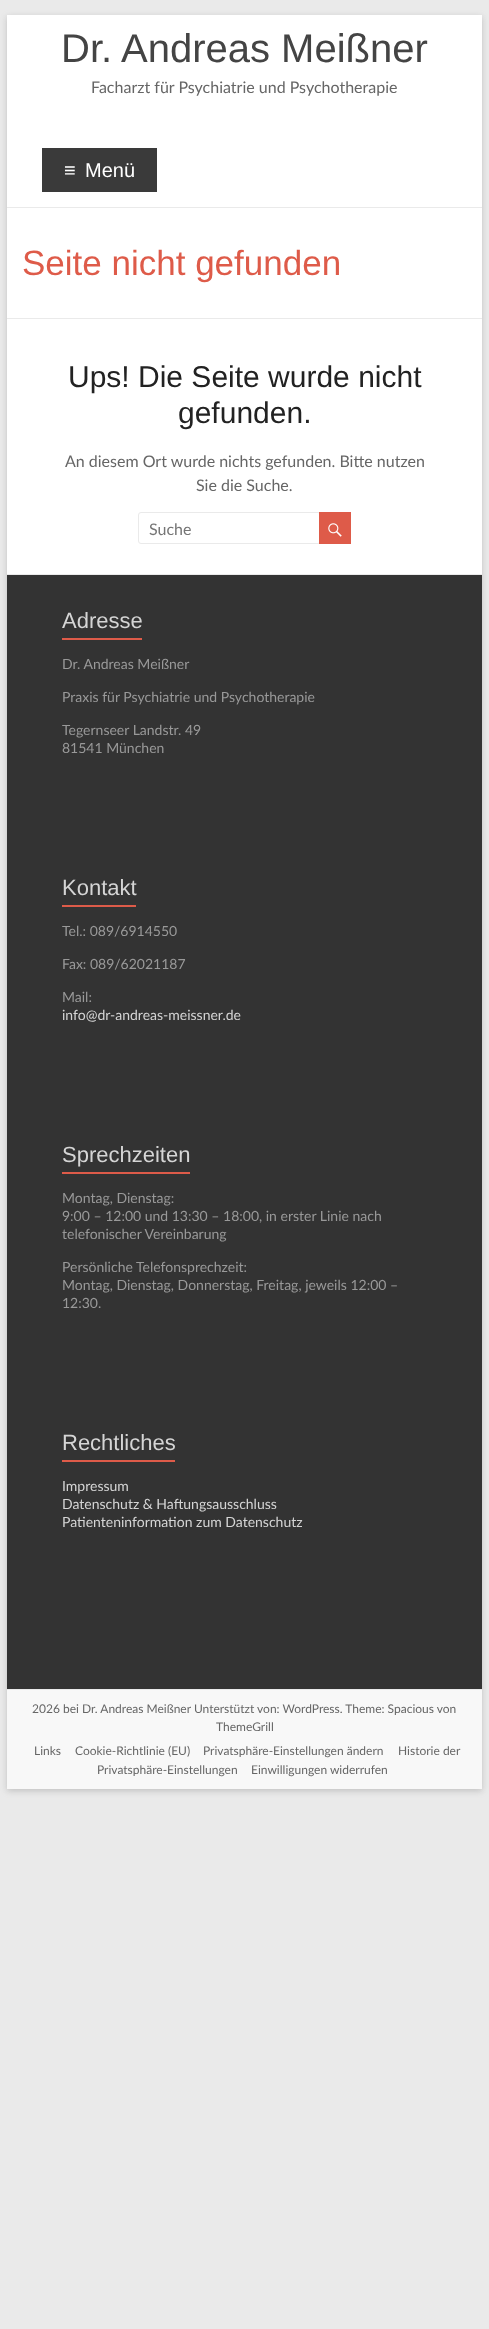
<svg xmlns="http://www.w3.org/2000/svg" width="489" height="2329">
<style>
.a{font:40px Liberation Sans;fill:#444}
.b{font:16px Lato;fill:#666}
.c{font:20px Liberation Sans;fill:#fff}
.d{font:35px Liberation Sans;fill:#de5b49}
.e{font:30px Liberation Sans;fill:#222}
.f{font:16px Lato;fill:#757575}
.g{font:22px Liberation Sans;fill:#d5d5d5}
.h{font:14px Lato;fill:#999}
.i{font:14px Lato;fill:#d5d5d5}
.j{font:12px Lato;fill:#666}
</style>
<rect width="100%" height="100%" fill="#eaeaea"/>
<path fill="#6464644d" filter="blur(3px)" d="M7 17h475v1774H7z"/>
<path fill="#fff" d="M7 15h475v559H7z"/>
<path fill="#eaeaea" d="M7 207h475v1H7z"/>
<path fill="#3a3a3a" d="M42 148h115v44H42z"/>
<path fill="#eaeaea" d="M7 318h475v1H7z"/>
<rect fill="none" stroke="#eaeaea" x="138.5" y="512.5" width="182" height="31" rx="2.5"/>
<path fill="#de5b49" d="M319 512h32v32H319z"/>
<image href="1.png" x="328" y="523" width="14" height="14"/>
<path fill="#333" d="M7 575h475v1114H7z"/>
<path fill="#eaeaea" d="M7 574h475v1H7z"/>
<path fill="#de5b49" d="M62 638h80v2H62z"/>
<path fill="#de5b49" d="M62 905h74v2H62z"/>
<path fill="#de5b49" d="M62 1172h128v2H62z"/>
<path fill="#de5b49" d="M62 1460h113v2H62z"/>
<path fill="#f8f8f8" d="M7 1690h475v99H7z"/>
<path fill="#eaeaea" d="M7 1689h475v1H7z"/>
<text class="a" x="61" y="62">Dr. Andreas Meißner</text>
<text class="b" x="91" y="93">Facharzt für Psychiatrie und Psychotherapie</text>
<text class="c" x="64" y="177">≡</text>
<text class="c" x="85" y="177">Menü</text>
<text class="d" x="22" y="275">Seite nicht gefunden</text>
<text class="e" x="68" y="387">Ups! Die Seite wurde nicht</text>
<text class="e" x="178" y="423">gefunden.</text>
<text class="b" x="65" y="467">An diesem Ort wurde nichts gefunden. Bitte nutzen</text>
<text class="b" x="196" y="491">Sie die Suche.</text>
<text class="f" x="149" y="535">Suche</text>
<text class="g" x="62" y="628">Adresse</text>
<text class="h" x="62" y="669">Dr. Andreas Meißner</text>
<text class="h" x="62" y="702">Praxis für Psychiatrie und Psychotherapie</text>
<text class="h" x="62" y="735">Tegernseer Landstr. 49</text>
<text class="h" x="62" y="753">81541 München</text>
<text class="g" x="62" y="895">Kontakt</text>
<text class="h" x="62" y="936">Tel.: 089/6914550</text>
<text class="h" x="62" y="969">Fax: 089/62021187</text>
<text class="h" x="62" y="1002">Mail:</text>
<text class="i" x="62" y="1020">info@dr-andreas-meissner.de</text>
<text class="g" x="62" y="1162">Sprechzeiten</text>
<text class="h" x="62" y="1203">Montag, Dienstag:</text>
<text class="h" x="62" y="1221">9:00 – 12:00 und 13:30 – 18:00, in erster Linie nach</text>
<text class="h" x="62" y="1239">telefonischer Vereinbarung</text>
<text class="h" x="62" y="1272">Persönliche Telefonsprechzeit:</text>
<text class="h" x="62" y="1290">Montag, Dienstag, Donnerstag, Freitag, jeweils 12:00 –</text>
<text class="h" x="62" y="1308">12:30.</text>
<text class="g" x="62" y="1450">Rechtliches</text>
<text class="i" x="62" y="1491">Impressum</text>
<text class="i" x="62" y="1509">Datenschutz &amp; Haftungsausschluss</text>
<text class="i" x="62" y="1527">Patienteninformation zum Datenschutz</text>
<text class="j" x="32" y="1713">2026 bei Dr. Andreas Meißner Unterstützt von: WordPress. Theme: Spacious von</text>
<text class="j" x="216" y="1731">ThemeGrill</text>
<text class="j" x="34" y="1755">Links</text>
<text class="j" x="75" y="1755">Cookie-Richtlinie (EU)</text>
<text class="j" x="203" y="1755">Privatsphäre-Einstellungen ändern</text>
<text class="j" x="398" y="1755">Historie der</text>
<text class="j" x="97" y="1774">Privatsphäre-Einstellungen</text>
<text class="j" x="251" y="1774">Einwilligungen widerrufen</text>
</svg>
